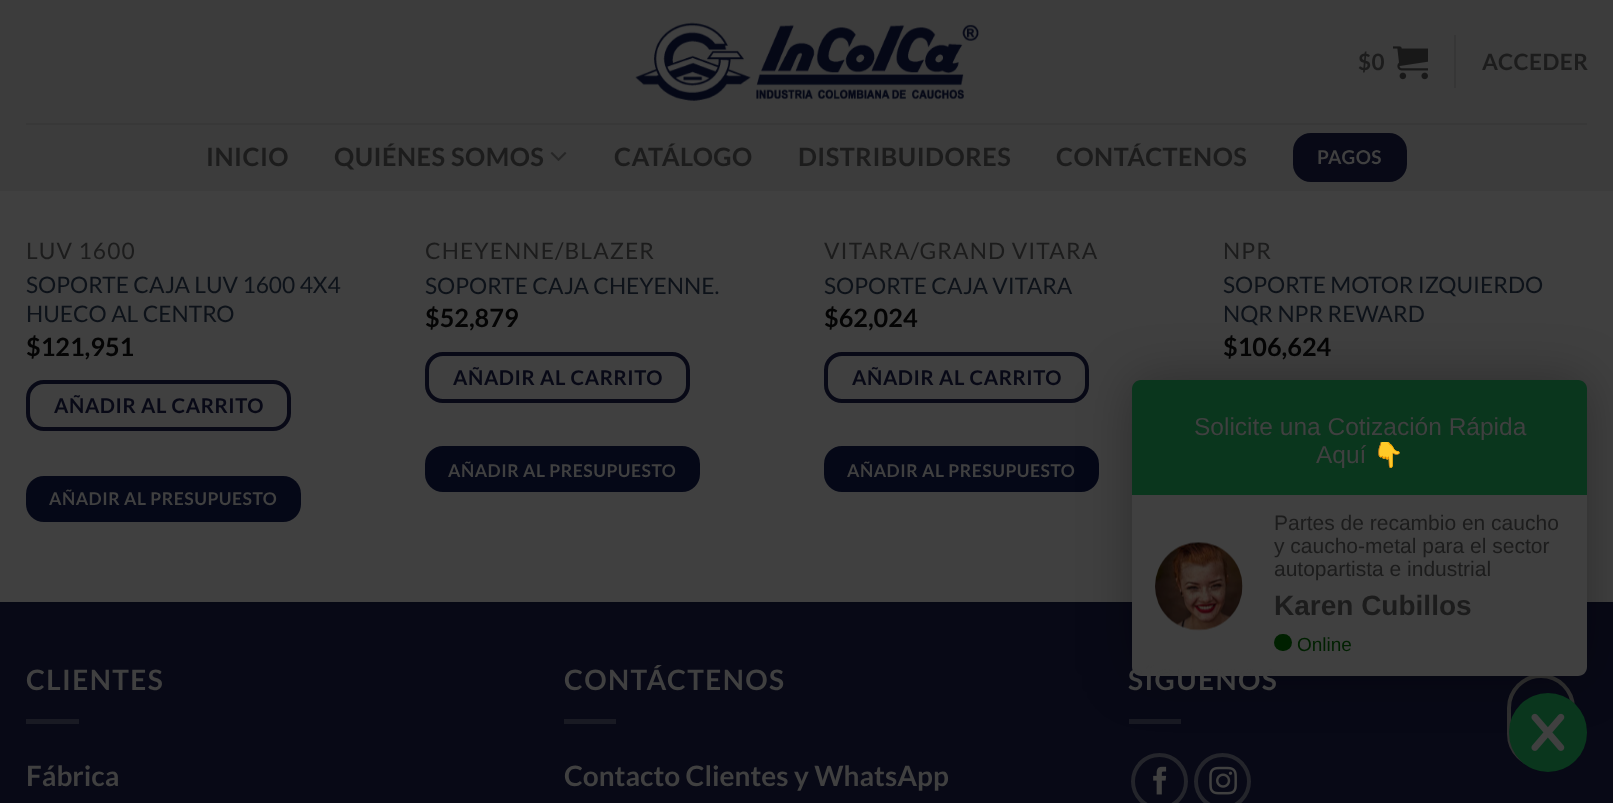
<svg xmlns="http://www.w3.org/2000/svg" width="1613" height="803">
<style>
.a{font:bold 22.5px Lato;letter-spacing:0.5px;fill:#1c1c1c}
.b{font:bold 25.25px Lato;letter-spacing:0.5px;fill:#1c1c1c}
.c{font:bold 19px Lato;letter-spacing:0.5px;fill:#404040}
.d{font:22.75px Lato;letter-spacing:1.1px;fill:#1c1c1c}
.e{font:22.75px Lato;fill:#0d1219}
.f{font:bold 25.25px Lato;fill:#040404}
.g{font:bold 20.25px Lato;letter-spacing:0.6px;fill:#080916}
.h{font:bold 17.5px Lato;letter-spacing:0.5px;fill:#404040}
.i{font:bold 28px Lato;letter-spacing:1.4px;fill:#404040}
.j{font:bold 28px Lato;fill:#404040}
.k{font:24.5px Liberation Sans;fill:#404040}
.l{font:24.5px Noto Color Emoji;fill:#404040}
.m{font:21px Liberation Sans;fill:#1c1c1c}
.n{font:bold 28px Liberation Sans;fill:#1c1c1c}
.o{font:19px Liberation Sans;fill:#002000}
</style>
<rect width="100%" height="100%" fill="#404040"/>
<path fill="#3c3c3ce6" d="M0 0h1613v191H0z"/>
<image href="1.png" x="635" y="22" width="344" height="79"/>
<image href="2.png" x="1393" y="46" width="35" height="34"/>
<path fill="#363636" d="M1454 35h2v53H1454z"/>
<path fill="#383838" d="M26 123h1561v2H26z"/>
<image href="3.png" x="550" y="152" width="17" height="9"/>
<rect fill="#080916" x="1293" y="133" width="114" height="49" rx="18"/>
<rect fill="none" stroke="#080916" stroke-width="4" x="28" y="382" width="261" height="47" rx="16"/>
<rect fill="#050817" x="26" y="476" width="275" height="46" rx="18"/>
<rect fill="none" stroke="#080916" stroke-width="4" x="427" y="354" width="261" height="47" rx="16"/>
<rect fill="#050817" x="425" y="446" width="275" height="46" rx="18"/>
<rect fill="none" stroke="#080916" stroke-width="4" x="826" y="354" width="261" height="47" rx="16"/>
<rect fill="#050817" x="824" y="446" width="275" height="46" rx="18"/>
<path fill="#080916" d="M0 604h1613v199H0z"/>
<path fill="#070915" d="M0 602h1613v2H0z"/>
<path fill="#191a23" d="M26 719h53v5H26z"/>
<path fill="#191a23" d="M564 719h52v5H564z"/>
<path fill="#191a23" d="M1129 719h52v5H1129z"/>
<circle fill="none" stroke="#24252b" stroke-width="4" cx="1159.5" cy="781.5" r="26.5"/>
<image href="4.png" x="1153" y="766" width="14" height="29"/>
<circle fill="none" stroke="#24252b" stroke-width="4" cx="1222.5" cy="781.5" r="26.5"/>
<image href="5.png" x="1209" y="766" width="28" height="29"/>
<rect fill="none" stroke="#303030" stroke-width="4" x="1509" y="676" width="64" height="90" rx="32"/>
<rect fill="#0000004d" filter="blur(26px)" x="1132" y="380" width="455" height="296" rx="9"/>
<path fill="#0a361d" d="M1141 380h437c5 0 9 4 9 9v106h-455v-106c0-5 4-9 9-9z"/>
<path fill="#404040" d="M1132 495h455v172c0 5-4 9-9 9h-437c-5 0-9-4-9-9z"/>
<image href="6.png" x="1155" y="542" width="88" height="89"/>
<rect fill="#002000" x="1274" y="634" width="18" height="17" rx="8.5"/>
<rect fill="#0a361d" x="1509" y="693" width="78" height="79" rx="39"/>
<image href="7.png" x="1531" y="713" width="34" height="38"/>
<text class="a" x="1358" y="70">$0</text>
<text class="a" x="1482" y="70">ACCEDER</text>
<text class="b" x="206" y="166">INICIO</text>
<text class="b" x="334" y="166">QUIÉNES SOMOS</text>
<text class="b" x="614" y="166">CATÁLOGO</text>
<text class="b" x="798" y="166">DISTRIBUIDORES</text>
<text class="b" x="1056" y="166">CONTÁCTENOS</text>
<text class="c" x="1317" y="164">PAGOS</text>
<text class="d" x="26" y="259">LUV 1600</text>
<text class="e" x="26" y="293">SOPORTE CAJA LUV 1600 4X4</text>
<text class="e" x="26" y="322">HUECO AL CENTRO</text>
<text class="f" x="26" y="356">$121,951</text>
<text class="g" x="54" y="413">AÑADIR AL CARRITO</text>
<text class="h" x="49" y="505">AÑADIR AL PRESUPUESTO</text>
<text class="d" x="425" y="259">CHEYENNE/BLAZER</text>
<text class="e" x="425" y="294">SOPORTE CAJA CHEYENNE.</text>
<text class="f" x="425" y="327">$52,879</text>
<text class="g" x="453" y="385">AÑADIR AL CARRITO</text>
<text class="h" x="448" y="477">AÑADIR AL PRESUPUESTO</text>
<text class="d" x="824" y="259">VITARA/GRAND VITARA</text>
<text class="e" x="824" y="294">SOPORTE CAJA VITARA</text>
<text class="f" x="824" y="327">$62,024</text>
<text class="g" x="852" y="385">AÑADIR AL CARRITO</text>
<text class="h" x="847" y="477">AÑADIR AL PRESUPUESTO</text>
<text class="d" x="1223" y="259">NPR</text>
<text class="e" x="1223" y="293">SOPORTE MOTOR IZQUIERDO</text>
<text class="e" x="1223" y="322">NQR NPR REWARD</text>
<text class="f" x="1223" y="356">$106,624</text>
<text class="i" x="26" y="690">CLIENTES</text>
<text class="j" x="26" y="786">Fábrica</text>
<text class="i" x="564" y="690">CONTÁCTENOS</text>
<text class="j" x="564" y="786">Contacto Clientes y WhatsApp</text>
<text class="i" x="1128" y="690">SÍGUENOS</text>
<text class="k" x="1194" y="435">Solicite una Cotización Rápida</text>
<text class="k" x="1316" y="463">Aquí</text>
<text class="l" x="1373" y="463">👇</text>
<text class="m" x="1274" y="530">Partes de recambio en caucho</text>
<text class="m" x="1274" y="553">y caucho-metal para el sector</text>
<text class="m" x="1274" y="576">autopartista e industrial</text>
<text class="n" x="1274" y="615">Karen Cubillos</text>
<text class="o" x="1297" y="651">Online</text>
</svg>
